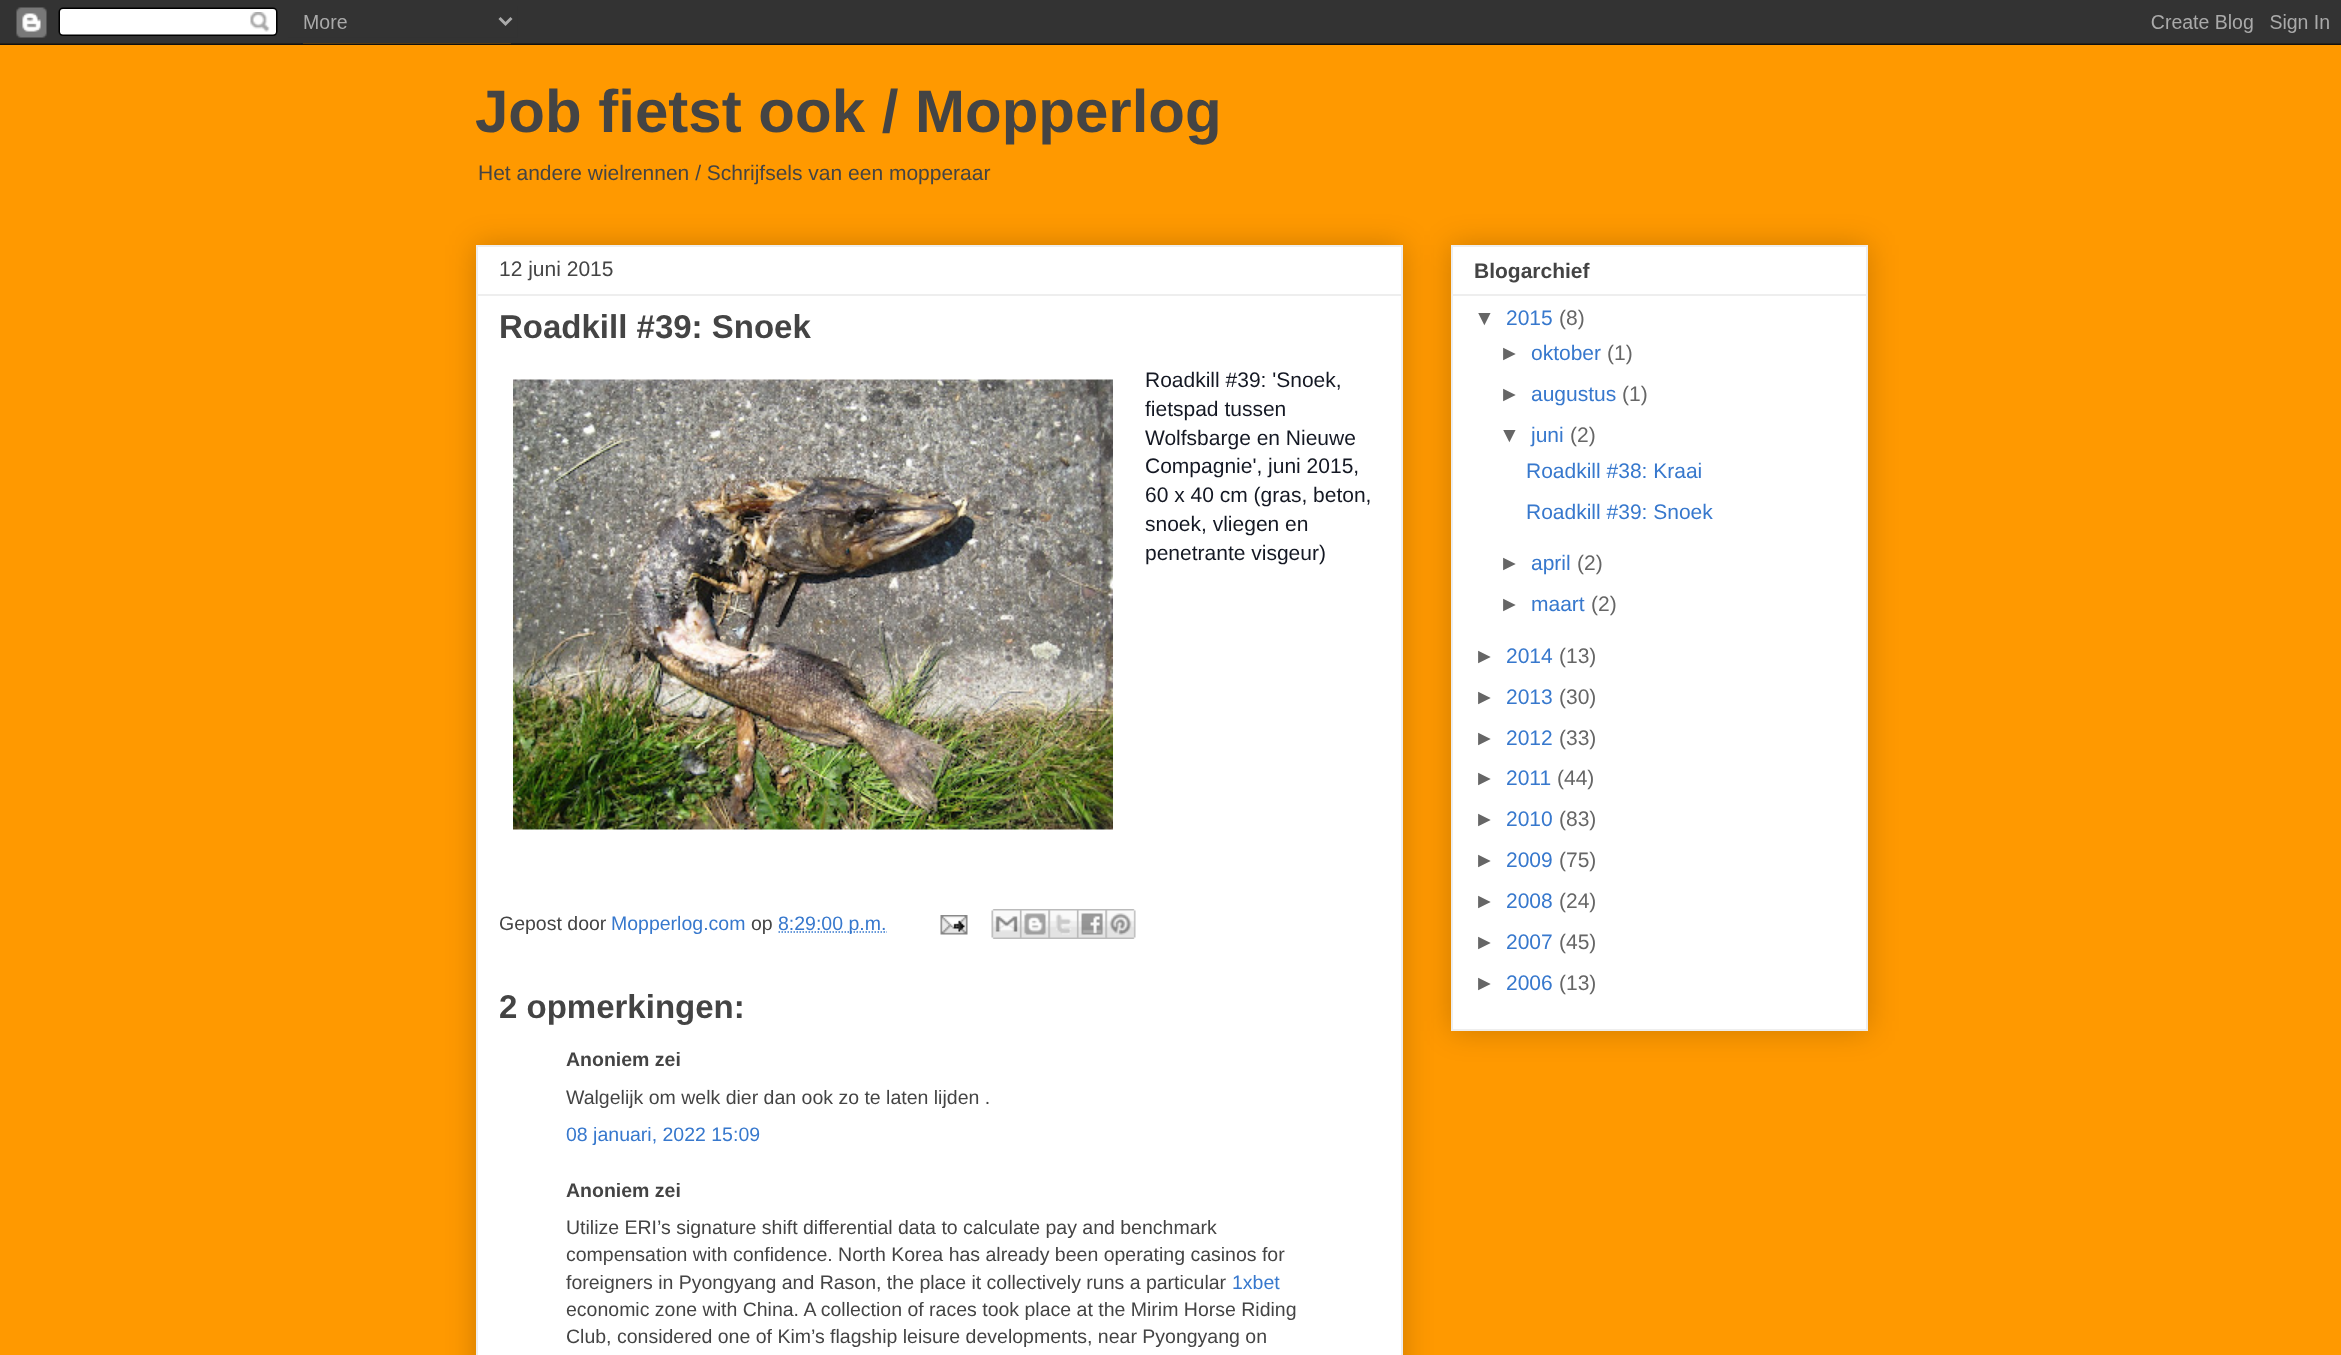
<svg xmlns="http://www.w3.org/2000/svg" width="2341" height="1355">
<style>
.a{font:bold 60px Liberation Sans;fill:#444}
.b{font:21px Liberation Sans;fill:#444}
.c{font:bold 33px Liberation Sans;fill:#444}
.d{font:21px Liberation Sans;fill:#141823}
.e{font:19.5px Liberation Sans;fill:#444}
.f{font:19.5px Liberation Sans;fill:#3778cd}
.g{font:bold 19.5px Liberation Sans;fill:#444}
.h{font:bold 21px Liberation Sans;fill:#444}
.i{font:21px Liberation Sans;fill:#666}
.j{font:21px Liberation Sans;fill:#3778cd}
</style>
<rect width="100%" height="100%" fill="#f90"/>
<image href="1.png" x="0" y="0" width="2341" height="45"/>
<path fill="#00000033" filter="blur(15px)" d="M476 245h927v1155H476z"/>
<path fill="#fff" stroke="#eee" stroke-width="2" d="M477 246h925v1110H477z"/>
<path fill="#eee" d="M477 294h924v2H477z"/>
<image href="2.png" x="513" y="379" width="600" height="451"/>
<path fill="none" stroke="#3778cd" stroke-width="1.5" stroke-dasharray="1.5 1.5" d="M778.5 932h108.5"/>
<image href="3.png" x="940" y="915" width="28" height="20"/>
<image href="4.png" x="991" y="909" width="29" height="30"/>
<image href="5.png" x="1020" y="909" width="29" height="30"/>
<image href="6.png" x="1048" y="909" width="29" height="30"/>
<image href="7.png" x="1077" y="909" width="29" height="30"/>
<image href="8.png" x="1105" y="909" width="31" height="30"/>
<path fill="#00000033" filter="blur(15px)" d="M1451 245h417v786H1451z"/>
<path fill="#fff" stroke="#eee" stroke-width="2" d="M1452 246h415v784H1452z"/>
<path fill="#eee" d="M1452 294h414v2H1452z"/>
<text class="a" x="475" y="132">Job fietst ook / Mopperlog</text>
<text class="b" x="478" y="180">Het andere wielrennen / Schrijfsels van een mopperaar</text>
<text class="b" x="499" y="276">12 juni 2015</text>
<text class="c" x="499" y="338">Roadkill #39: Snoek</text>
<text class="d" x="1145" y="387">Roadkill #39: 'Snoek,</text>
<text class="d" x="1145" y="416">fietspad tussen</text>
<text class="d" x="1145" y="445">Wolfsbarge en Nieuwe</text>
<text class="d" x="1145" y="473">Compagnie', juni 2015,</text>
<text class="d" x="1145" y="502">60 x 40 cm (gras, beton,</text>
<text class="d" x="1145" y="531">snoek, vliegen en</text>
<text class="d" x="1145" y="560">penetrante visgeur)</text>
<text class="e" x="499" y="930">Gepost door</text>
<text class="f" x="611" y="930">Mopperlog.com</text>
<text class="e" x="751" y="930">op</text>
<text class="f" x="778" y="930">8:29:00 p.m.</text>
<text class="c" x="499" y="1018">2 opmerkingen:</text>
<text class="g" x="566" y="1066">Anoniem zei</text>
<text class="e" x="566" y="1104">Walgelijk om welk dier dan ook zo te laten lijden .</text>
<text class="f" x="566" y="1141">08 januari, 2022 15:09</text>
<text class="g" x="566" y="1197">Anoniem zei</text>
<text class="e" x="566" y="1234">Utilize ERI’s signature shift differential data to calculate pay and benchmark</text>
<text class="e" x="566" y="1261">compensation with confidence. North Korea has already been operating casinos for</text>
<text class="e" x="566" y="1289">foreigners in Pyongyang and Rason, the place it collectively runs a particular</text>
<text class="f" x="1232" y="1289">1xbet</text>
<text class="e" x="566" y="1316">economic zone with China. A collection of races took place at the Mirim Horse Riding</text>
<text class="e" x="566" y="1343">Club, considered one of Kim’s flagship leisure developments, near Pyongyang on</text>
<text class="h" x="1474" y="278">Blogarchief</text>
<text class="i" x="1474" y="325">▼</text>
<text class="j" x="1506" y="325">2015</text>
<text class="i" x="1559" y="325">(8)</text>
<text class="i" x="1499" y="360">►</text>
<text class="j" x="1531" y="360">oktober</text>
<text class="i" x="1607" y="360">(1)</text>
<text class="i" x="1499" y="401">►</text>
<text class="j" x="1531" y="401">augustus</text>
<text class="i" x="1622" y="401">(1)</text>
<text class="i" x="1499" y="442">▼</text>
<text class="j" x="1531" y="442">juni</text>
<text class="i" x="1570" y="442">(2)</text>
<text class="j" x="1526" y="478">Roadkill #38: Kraai</text>
<text class="j" x="1526" y="519">Roadkill #39: Snoek</text>
<text class="i" x="1499" y="570">►</text>
<text class="j" x="1531" y="570">april</text>
<text class="i" x="1577" y="570">(2)</text>
<text class="i" x="1499" y="611">►</text>
<text class="j" x="1531" y="611">maart</text>
<text class="i" x="1591" y="611">(2)</text>
<text class="i" x="1474" y="663">►</text>
<text class="j" x="1506" y="663">2014</text>
<text class="i" x="1559" y="663">(13)</text>
<text class="i" x="1474" y="704">►</text>
<text class="j" x="1506" y="704">2013</text>
<text class="i" x="1559" y="704">(30)</text>
<text class="i" x="1474" y="745">►</text>
<text class="j" x="1506" y="745">2012</text>
<text class="i" x="1559" y="745">(33)</text>
<text class="i" x="1474" y="785">►</text>
<text class="j" x="1506" y="785">2011</text>
<text class="i" x="1557" y="785">(44)</text>
<text class="i" x="1474" y="826">►</text>
<text class="j" x="1506" y="826">2010</text>
<text class="i" x="1559" y="826">(83)</text>
<text class="i" x="1474" y="867">►</text>
<text class="j" x="1506" y="867">2009</text>
<text class="i" x="1559" y="867">(75)</text>
<text class="i" x="1474" y="908">►</text>
<text class="j" x="1506" y="908">2008</text>
<text class="i" x="1559" y="908">(24)</text>
<text class="i" x="1474" y="949">►</text>
<text class="j" x="1506" y="949">2007</text>
<text class="i" x="1559" y="949">(45)</text>
<text class="i" x="1474" y="990">►</text>
<text class="j" x="1506" y="990">2006</text>
<text class="i" x="1559" y="990">(13)</text>
</svg>
